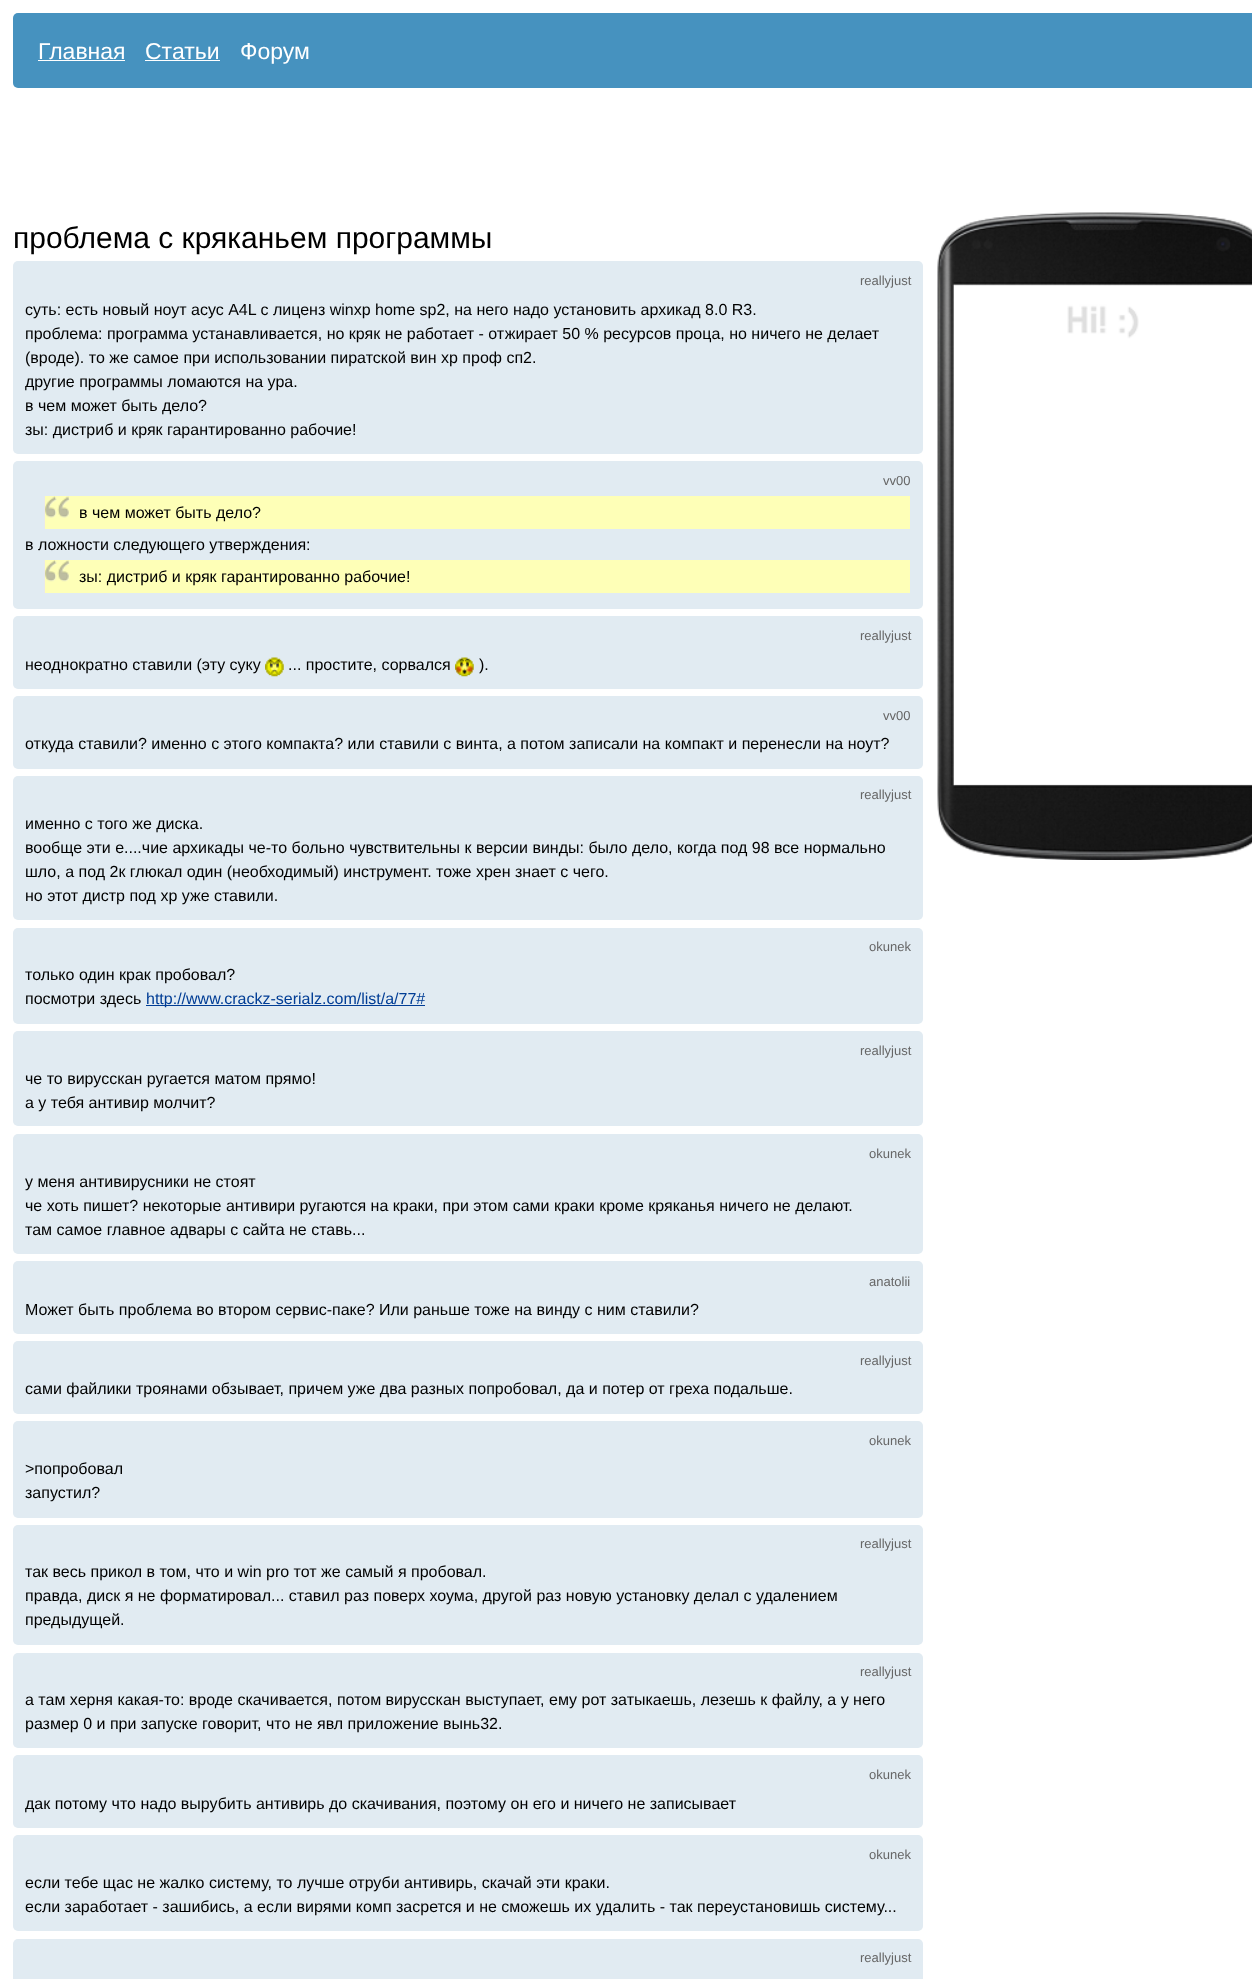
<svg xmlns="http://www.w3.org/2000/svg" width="1252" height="1979">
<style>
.a{font:23px Liberation Sans;fill:#fff}
.b{font:30px Liberation Sans;fill:#000}
.c{font:13px Liberation Sans;fill:#666}
.d{font:16px Liberation Sans;fill:#000}
.e{font:16px Liberation Sans;fill:#013d95}
</style>
<rect width="100%" height="100%" fill="#fff"/>
<rect fill="#4692bf" x="13" y="13" width="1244" height="75" rx="5"/>
<path fill="#fff" d="M38 60h87v1H38z"/>
<path fill="#fff" d="M145 60h75v1H145z"/>
<rect fill="#e1ebf2" x="13" y="261" width="910" height="193" rx="5"/>
<rect fill="#e1ebf2" x="13" y="461" width="910" height="148" rx="5"/>
<path fill="#feffb7" d="M45 496h865v33H45z"/>
<image href="1.png" x="45" y="496" width="25" height="22"/>
<path fill="#e9e9e9" d="M44 496h1v33H44z"/>
<path fill="#feffb7" d="M45 560h865v33H45z"/>
<image href="2.png" x="45" y="560" width="25" height="22"/>
<path fill="#e9e9e9" d="M44 560h1v33H44z"/>
<rect fill="#e1ebf2" x="13" y="616" width="910" height="73" rx="5"/>
<image href="3.png" x="265" y="657" width="19" height="20"/>
<image href="4.png" x="455" y="657" width="19" height="20"/>
<rect fill="#e1ebf2" x="13" y="696" width="910" height="73" rx="5"/>
<rect fill="#e1ebf2" x="13" y="776" width="910" height="144" rx="5"/>
<rect fill="#e1ebf2" x="13" y="928" width="910" height="96" rx="5"/>
<path fill="#013d95" d="M146 1005h279v1H146z"/>
<rect fill="#e1ebf2" x="13" y="1031" width="910" height="95" rx="5"/>
<rect fill="#e1ebf2" x="13" y="1134" width="910" height="120" rx="5"/>
<rect fill="#e1ebf2" x="13" y="1261" width="910" height="73" rx="5"/>
<rect fill="#e1ebf2" x="13" y="1341" width="910" height="73" rx="5"/>
<rect fill="#e1ebf2" x="13" y="1421" width="910" height="97" rx="5"/>
<rect fill="#e1ebf2" x="13" y="1525" width="910" height="120" rx="5"/>
<rect fill="#e1ebf2" x="13" y="1653" width="910" height="95" rx="5"/>
<rect fill="#e1ebf2" x="13" y="1755" width="910" height="73" rx="5"/>
<rect fill="#e1ebf2" x="13" y="1835" width="910" height="96" rx="5"/>
<rect fill="#e1ebf2" x="13" y="1939" width="910" height="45" rx="5"/>
<image href="5.png" x="937" y="212" width="315" height="648"/>
<text class="a" x="38" y="59">Главная</text>
<text class="a" x="145" y="59">Статьи</text>
<text class="a" x="240" y="59">Форум</text>
<text class="b" x="13" y="248">проблема с кряканьем программы</text>
<text class="c" x="860" y="285">reallyjust</text>
<text class="d" x="25" y="315">суть: есть новый ноут асус A4L с лиценз winxp home sp2, на него надо установить архикад 8.0 R3.</text>
<text class="d" x="25" y="339">проблема: программа устанавливается, но кряк не работает - отжирает 50 % ресурсов проца, но ничего не делает</text>
<text class="d" x="25" y="363">(вроде). то же самое при использовании пиратской вин хр проф сп2.</text>
<text class="d" x="25" y="387">другие программы ломаются на ура.</text>
<text class="d" x="25" y="411">в чем может быть дело?</text>
<text class="d" x="25" y="435">зы: дистриб и кряк гарантированно рабочие!</text>
<text class="c" x="883" y="485">vv00</text>
<text class="d" x="79" y="518">в чем может быть дело?</text>
<text class="d" x="25" y="550">в ложности следующего утверждения:</text>
<text class="d" x="79" y="582">зы: дистриб и кряк гарантированно рабочие!</text>
<text class="c" x="860" y="640">reallyjust</text>
<text class="d" x="25" y="670">неоднократно ставили (эту суку</text>
<text class="d" x="288" y="670">... простите, сорвался</text>
<text class="d" x="479" y="670">).</text>
<text class="c" x="883" y="720">vv00</text>
<text class="d" x="25" y="749">откуда ставили? именно с этого компакта? или ставили с винта, а потом записали на компакт и перенесли на ноут?</text>
<text class="c" x="860" y="799">reallyjust</text>
<text class="d" x="25" y="829">именно с того же диска.</text>
<text class="d" x="25" y="853">вообще эти е....чие архикады че-то больно чувствительны к версии винды: было дело, когда под 98 все нормально</text>
<text class="d" x="25" y="877">шло, а под 2к глюкал один (необходимый) инструмент. тоже хрен знает с чего.</text>
<text class="d" x="25" y="901">но этот дистр под хр уже ставили.</text>
<text class="c" x="869" y="951">okunek</text>
<text class="d" x="25" y="980">только один крак пробовал?</text>
<text class="d" x="25" y="1004">посмотри здесь</text>
<text class="e" x="146" y="1004">http://www.crackz-serialz.com/list/a/77#</text>
<text class="c" x="860" y="1055">reallyjust</text>
<text class="d" x="25" y="1084">че то вирусскан ругается матом прямо!</text>
<text class="d" x="25" y="1108">а у тебя антивир молчит?</text>
<text class="c" x="869" y="1158">okunek</text>
<text class="d" x="25" y="1187">у меня антивирусники не стоят</text>
<text class="d" x="25" y="1211">че хоть пишет? некоторые антивири ругаются на краки, при этом сами краки кроме кряканья ничего не делают.</text>
<text class="d" x="25" y="1235">там самое главное адвары с сайта не ставь...</text>
<text class="c" x="869" y="1286">anatolii</text>
<text class="d" x="25" y="1315">Может быть проблема во втором сервис-паке? Или раньше тоже на винду с ним ставили?</text>
<text class="c" x="860" y="1365">reallyjust</text>
<text class="d" x="25" y="1394">сами файлики троянами обзывает, причем уже два разных попробовал, да и потер от греха подальше.</text>
<text class="c" x="869" y="1445">okunek</text>
<text class="d" x="25" y="1474">&gt;попробовал</text>
<text class="d" x="25" y="1498">запустил?</text>
<text class="c" x="860" y="1548">reallyjust</text>
<text class="d" x="25" y="1577">так весь прикол в том, что и win pro тот же самый я пробовал.</text>
<text class="d" x="25" y="1601">правда, диск я не форматировал... ставил раз поверх хоума, другой раз новую установку делал с удалением</text>
<text class="d" x="25" y="1625">предыдущей.</text>
<text class="c" x="860" y="1676">reallyjust</text>
<text class="d" x="25" y="1705">а там херня какая-то: вроде скачивается, потом вирусскан выступает, ему рот затыкаешь, лезешь к файлу, а у него</text>
<text class="d" x="25" y="1729">размер 0 и при запуске говорит, что не явл приложение вынь32.</text>
<text class="c" x="869" y="1779">okunek</text>
<text class="d" x="25" y="1809">дак потому что надо вырубить антивирь до скачивания, поэтому он его и ничего не записывает</text>
<text class="c" x="869" y="1859">okunek</text>
<text class="d" x="25" y="1888">если тебе щас не жалко систему, то лучше отруби антивирь, скачай эти краки.</text>
<text class="d" x="25" y="1912">если заработает - зашибись, а если вирями комп засрется и не сможешь их удалить - так переустановишь систему...</text>
<text class="c" x="860" y="1962">reallyjust</text>
</svg>
